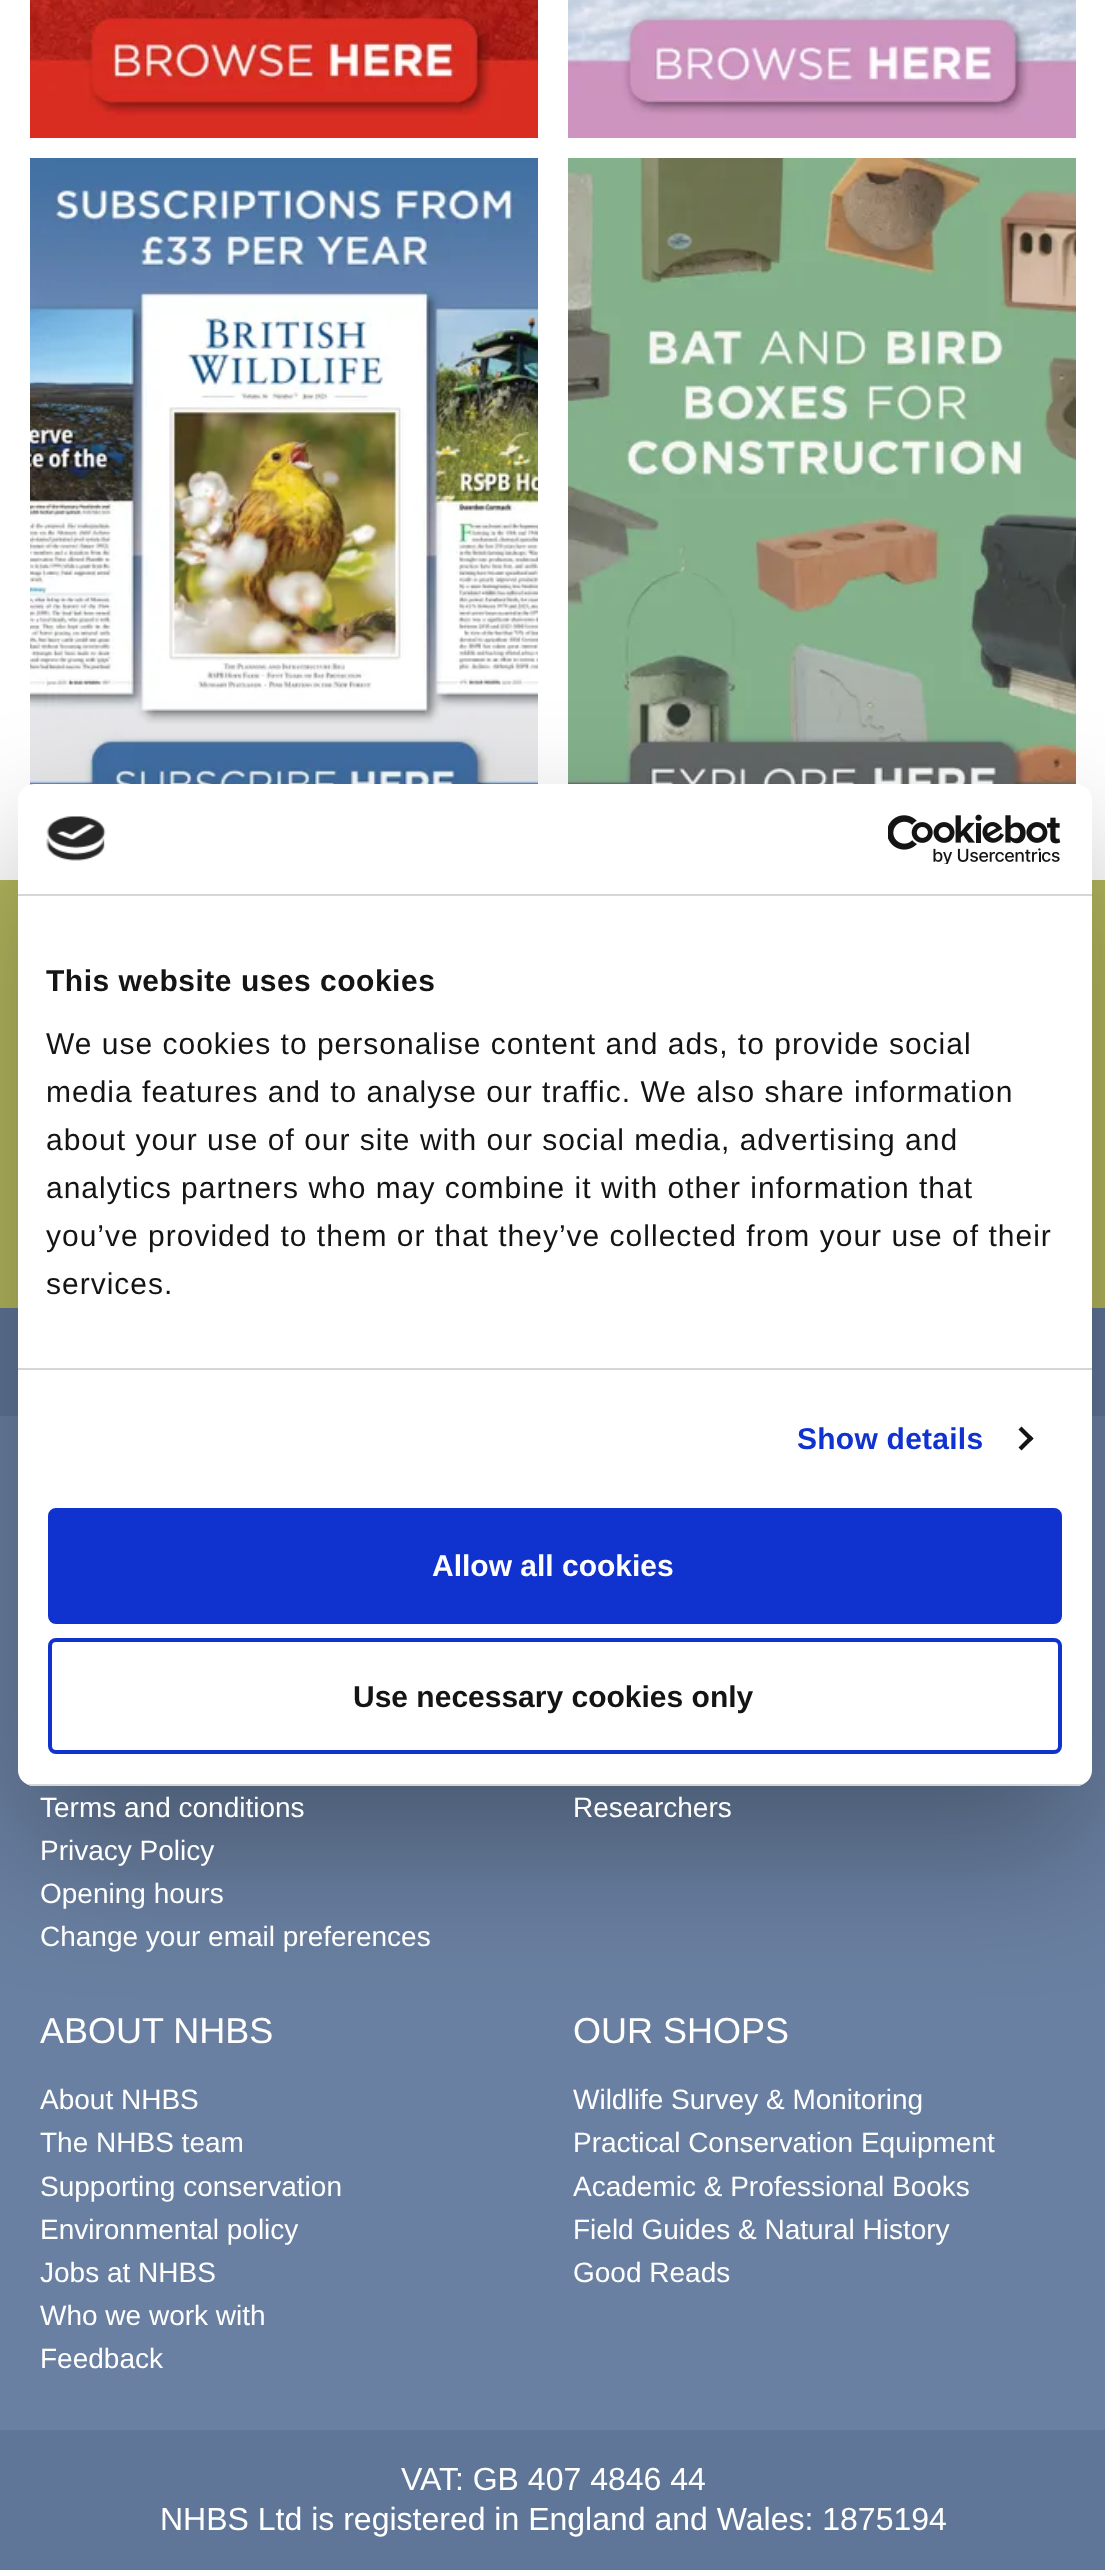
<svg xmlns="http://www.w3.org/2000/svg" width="1105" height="2570">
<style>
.a{font:bold 30px Liberation Sans;letter-spacing:0.5px;fill:#141414}
.b{font:30px Liberation Sans;letter-spacing:1px;fill:#141414}
.c{font:bold 30px Liberation Sans;letter-spacing:0.25px;fill:#1032cf}
.d{font:bold 30px Liberation Sans;fill:#fff}
.e{font:bold 30px Liberation Sans;fill:#141414}
.f{font:28px Liberation Sans;fill:#fff}
.g{font:36px Liberation Sans;fill:#fff}
.h{font:32px Liberation Sans;fill:#fff}
</style>
<defs>
<clipPath id="clip1"><rect x="18" y="784" width="1074" height="1002" rx="16"/></clipPath>
</defs>
<rect width="100%" height="100%" fill="#fff"/>
<image href="1.png" x="30" y="0" width="508" height="138"/>
<image href="2.png" x="568" y="0" width="508" height="138"/>
<image href="3.png" x="30" y="158" width="508" height="627"/>
<image href="4.png" x="568" y="158" width="508" height="626"/>
<path fill="#b3b65d" d="M0 880h1105v428H0z"/>
<path fill="#5f7698" d="M0 1308h1105v108H0z"/>
<path fill="#6a80a2" d="M0 1416h1105v1014H0z"/>
<rect fill="#0000004d" filter="blur(68px)" x="18" y="848" width="1074" height="1002" rx="16"/>
<rect fill="#fff" x="18" y="784" width="1074" height="1002" rx="16"/>
<path fill="#d6d6d6" d="M18 894h1074v2H18z"/>
<image href="5.png" x="46" y="816" width="60" height="45"/>
<image href="6.png" x="888" y="814" width="173" height="50"/>
<path fill="#d6d6d6" d="M18 1368h1074v2H18z"/>
<path fill="#141414" d="M1021.5 1426.5l12 12l-3 3l-12-12z"/>
<path fill="#141414" d="M1030.5 1435.5l3 3l-12 12l-3-3z"/>
<g clip-path="url(#clip1)">
<path fill="#d6d6d6" d="M18 1784h1074v2H18z"/>
</g>
<rect fill="#1032cf" stroke="#1032cf" stroke-width="4" x="50" y="1510" width="1010" height="112" rx="6"/>
<rect fill="none" stroke="#1032cf" stroke-width="4" x="50" y="1640" width="1010" height="112" rx="6"/>
<path fill="#5f7698" d="M0 2430h1105v140H0z"/>
<text class="a" x="46" y="991">This website uses cookies</text>
<text class="b" x="46" y="1054">We use cookies to personalise content and ads, to provide social</text>
<text class="b" x="46" y="1102">media features and to analyse our traffic. We also share information</text>
<text class="b" x="46" y="1150">about your use of our site with our social media, advertising and</text>
<text class="b" x="46" y="1198">analytics partners who may combine it with other information that</text>
<text class="b" x="46" y="1246">you’ve provided to them or that they’ve collected from your use of their</text>
<text class="b" x="46" y="1294">services.</text>
<text class="c" x="797" y="1449">Show details</text>
<text class="d" x="432" y="1576">Allow all cookies</text>
<text class="e" x="353" y="1707">Use necessary cookies only</text>
<text class="f" x="40" y="1817">Terms and conditions</text>
<text class="f" x="40" y="1860">Privacy Policy</text>
<text class="f" x="40" y="1903">Opening hours</text>
<text class="f" x="40" y="1946">Change your email preferences</text>
<text class="f" x="573" y="1817">Researchers</text>
<text class="g" x="40" y="2043">ABOUT NHBS</text>
<text class="f" x="40" y="2109">About NHBS</text>
<text class="f" x="40" y="2152">The NHBS team</text>
<text class="f" x="40" y="2196">Supporting conservation</text>
<text class="f" x="40" y="2239">Environmental policy</text>
<text class="f" x="40" y="2282">Jobs at NHBS</text>
<text class="f" x="40" y="2325">Who we work with</text>
<text class="f" x="40" y="2368">Feedback</text>
<text class="g" x="573" y="2043">OUR SHOPS</text>
<text class="f" x="573" y="2109">Wildlife Survey &amp; Monitoring</text>
<text class="f" x="573" y="2152">Practical Conservation Equipment</text>
<text class="f" x="573" y="2196">Academic &amp; Professional Books</text>
<text class="f" x="573" y="2239">Field Guides &amp; Natural History</text>
<text class="f" x="573" y="2282">Good Reads</text>
<text class="h" x="401" y="2490">VAT: GB 407 4846 44</text>
<text class="h" x="160" y="2530">NHBS Ltd is registered in England and Wales: 1875194</text>
</svg>
